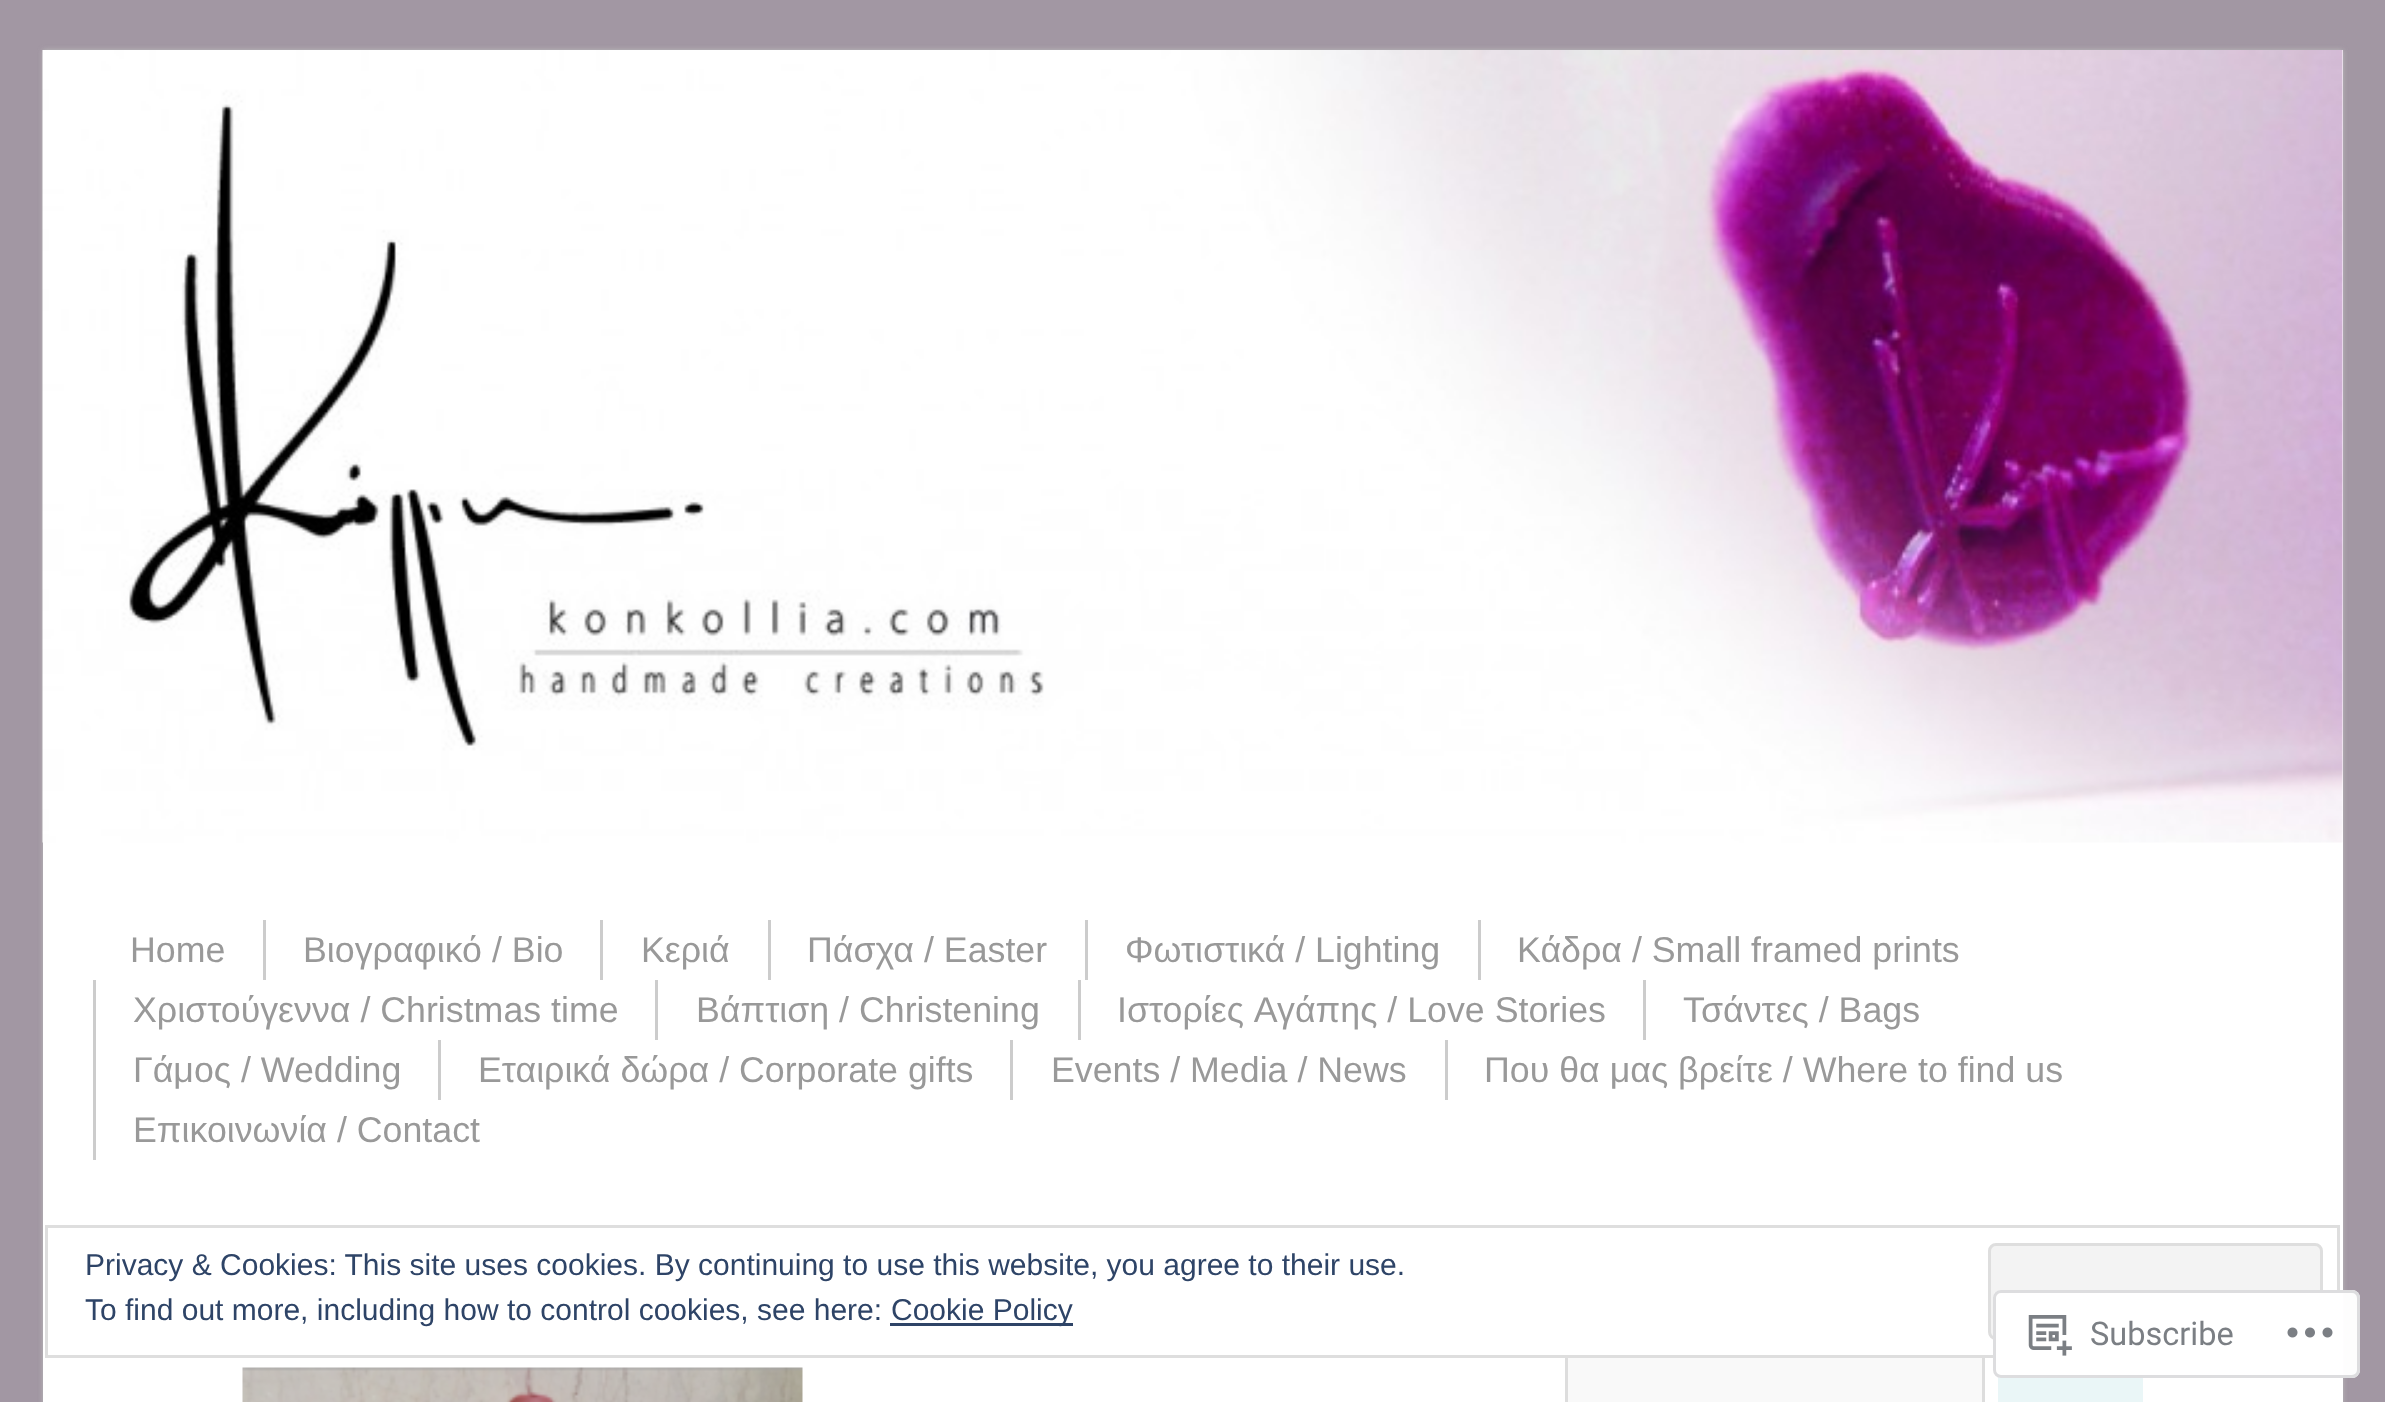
<svg xmlns="http://www.w3.org/2000/svg" width="2385" height="1402">
<style>
.a{font:35.75px Arimo;fill:#999}
.b{font:30px Arimo;fill:#2e4467}
.c{font:32.5px Roboto;fill:#7b7f84}
</style>
<rect width="100%" height="100%" fill="#a297a3"/>
<path fill="#bbb" filter="blur(2.5px)" d="M43 50h2300v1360H43z"/>
<path fill="#fff" d="M43 50h2300v1352H43z"/>
<image href="1.png" x="42" y="50" width="2301" height="793"/>
<path fill="#ccc" d="M263 920h3v60H263z"/>
<path fill="#ccc" d="M600 920h3v60H600z"/>
<path fill="#ccc" d="M768 920h3v60H768z"/>
<path fill="#ccc" d="M1085 920h3v60H1085z"/>
<path fill="#ccc" d="M1478 920h3v60H1478z"/>
<path fill="#ccc" d="M93 980h3v180H93z"/>
<path fill="#ccc" d="M655 980h3v60H655z"/>
<path fill="#ccc" d="M1078 980h3v60H1078z"/>
<path fill="#ccc" d="M1643 980h3v60H1643z"/>
<path fill="#ccc" d="M438 1040h3v60H438z"/>
<path fill="#ccc" d="M1010 1040h3v60H1010z"/>
<path fill="#ccc" d="M1445 1040h3v60H1445z"/>
<image href="2.png" x="242" y="1367" width="561" height="35"/>
<path fill="#f9f9f9" d="M1568 1358h414v44H1568z"/>
<path fill="none" stroke="#ddd" stroke-width="3" d="M1566.5 1341.5h417v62H1566.5z"/>
<path fill="#eaf6f7" d="M1998 1358h145v44H1998z"/>
<path fill="#fff" d="M1565 1340h420v15H1565z"/>
<path fill="none" stroke="#dedede" stroke-width="3" d="M46.5 1226.5h2292v130H46.5z"/>
<rect fill="#f3f3f3" stroke="#dedede" stroke-width="3" x="1989.5" y="1244.5" width="332" height="94" rx="6.5"/>
<path fill="#2e4467" d="M890 1323h183v3H890z"/>
<rect fill="#fffffffa" x="1993" y="1290" width="367" height="88" rx="8"/>
<rect fill="none" stroke="#dcdcdefa" stroke-width="3" x="1994.5" y="1291.5" width="364" height="85" rx="6.5"/>
<image href="3.png" x="2028" y="1315" width="44" height="41"/>
<image href="4.png" x="2287" y="1327" width="46" height="11"/>
<text class="a" x="130" y="962">Home</text>
<text class="a" x="303" y="962">Βιογραφικό / Bio</text>
<text class="a" x="641" y="962">Κεριά</text>
<text class="a" x="807" y="962">Πάσχα / Easter</text>
<text class="a" x="1125" y="962">Φωτιστικά / Lighting</text>
<text class="a" x="1517" y="962">Κάδρα / Small framed prints</text>
<text class="a" x="133" y="1022">Χριστούγεννα / Christmas time</text>
<text class="a" x="696" y="1022">Βάπτιση / Christening</text>
<text class="a" x="1117" y="1022">Ιστορίες Αγάπης / Love Stories</text>
<text class="a" x="1683" y="1022">Τσάντες / Bags</text>
<text class="a" x="133" y="1082">Γάμος / Wedding</text>
<text class="a" x="478" y="1082">Εταιρικά δώρα / Corporate gifts</text>
<text class="a" x="1051" y="1082">Events / Media / News</text>
<text class="a" x="1484" y="1082">Που θα μας βρείτε / Where to find us</text>
<text class="a" x="133" y="1142">Επικοινωνία / Contact</text>
<text class="b" x="85" y="1275">Privacy &amp; Cookies: This site uses cookies. By continuing to use this website, you agree to their use.</text>
<text class="b" x="85" y="1320">To find out more, including how to control cookies, see here:</text>
<text class="b" x="891" y="1320">Cookie Policy</text>
<text class="c" x="2090" y="1345">Subscribe</text>
</svg>
